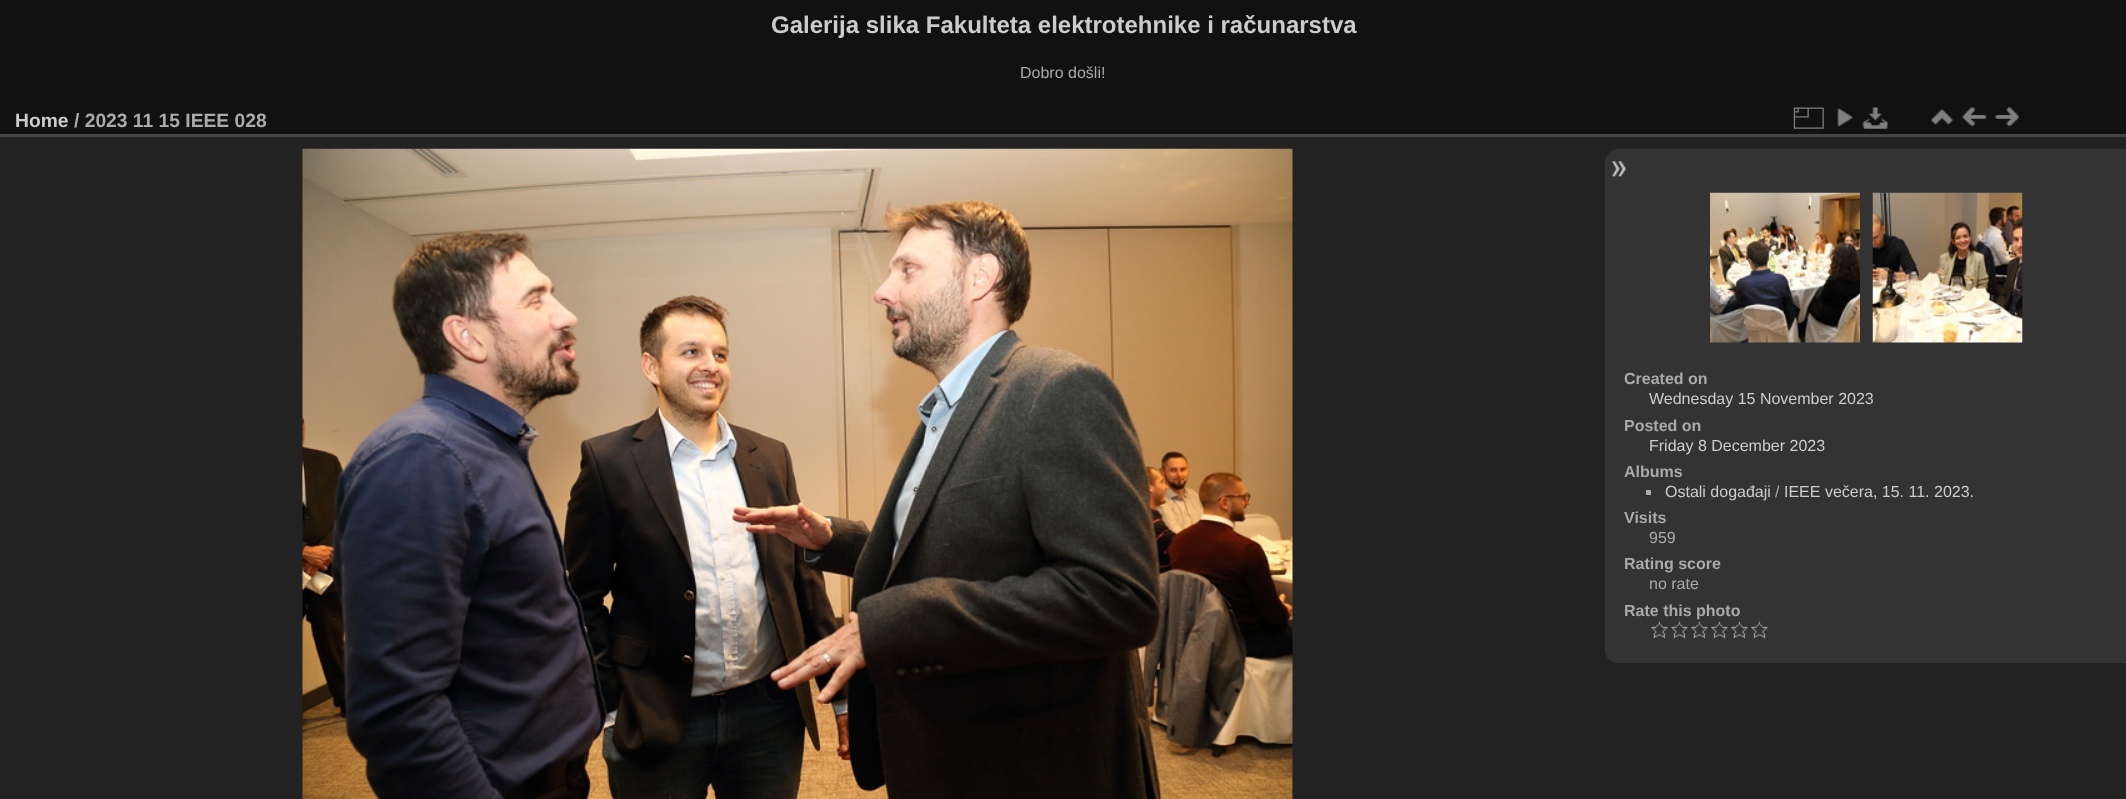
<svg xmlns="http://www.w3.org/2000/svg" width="2126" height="799">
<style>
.a{font:bold 24px Liberation Sans;fill:#ccc}
.b{font:16px Liberation Sans;fill:#aaa}
.c{font:bold 19.25px Liberation Sans;fill:#ccc}
.d{font:bold 19.25px Liberation Sans;fill:#aaa}
.e{font:bold 16px Liberation Sans;fill:#aaa}
.f{font:16px Liberation Sans;fill:#ccc}
</style>
<rect width="100%" height="100%" fill="#111"/>
<path fill="#222" d="M0 137h2126v662H0z"/>
<path fill="#444" d="M0 134h2126v3H0z"/>
<image href="1.png" x="1793" y="107" width="31" height="22"/>
<image href="2.png" x="1837" y="108" width="16" height="19"/>
<image href="3.png" x="1862" y="107" width="27" height="22"/>
<image href="4.png" x="1931" y="108" width="22" height="18"/>
<image href="5.png" x="1962" y="107" width="25" height="20"/>
<image href="6.png" x="1995" y="107" width="24" height="20"/>
<image href="7.png" x="302" y="148" width="991" height="651"/>
<path fill="#333" d="M1618 149h508v514h-508c-7 0-13-6-13-13v-488c0-7 6-13 13-13z"/>
<image href="8.png" x="1612" y="161" width="15" height="16"/>
<image href="9.png" x="1710" y="192" width="150" height="151"/>
<image href="10.png" x="1872" y="192" width="151" height="151"/>
<path fill="#aaa" d="M1646 490h5v5H1646z"/>
<image href="11.png" x="1651" y="621" width="17" height="18"/>
<image href="11.png" x="1671" y="621" width="17" height="18"/>
<image href="12.png" x="1691" y="621" width="17" height="18"/>
<image href="12.png" x="1711" y="621" width="17" height="18"/>
<image href="12.png" x="1731" y="621" width="17" height="18"/>
<image href="12.png" x="1751" y="621" width="17" height="18"/>
<text class="a" x="771" y="33">Galerija slika Fakulteta elektrotehnike i računarstva</text>
<text class="b" x="1020" y="78">Dobro došli!</text>
<text class="c" x="15" y="127">Home</text>
<text class="d" x="74" y="127">/ 2023 11 15 IEEE 028</text>
<text class="e" x="1624" y="384">Created on</text>
<text class="f" x="1649" y="404">Wednesday 15 November 2023</text>
<text class="e" x="1624" y="431">Posted on</text>
<text class="f" x="1649" y="451">Friday 8 December 2023</text>
<text class="e" x="1624" y="477">Albums</text>
<text class="f" x="1665" y="497">Ostali događaji</text>
<text class="b" x="1775" y="497">/</text>
<text class="f" x="1784" y="497">IEEE večera, 15. 11. 2023.</text>
<text class="e" x="1624" y="523">Visits</text>
<text class="b" x="1649" y="543">959</text>
<text class="e" x="1624" y="569">Rating score</text>
<text class="b" x="1649" y="589">no rate</text>
<text class="e" x="1624" y="616">Rate this photo</text>
</svg>
